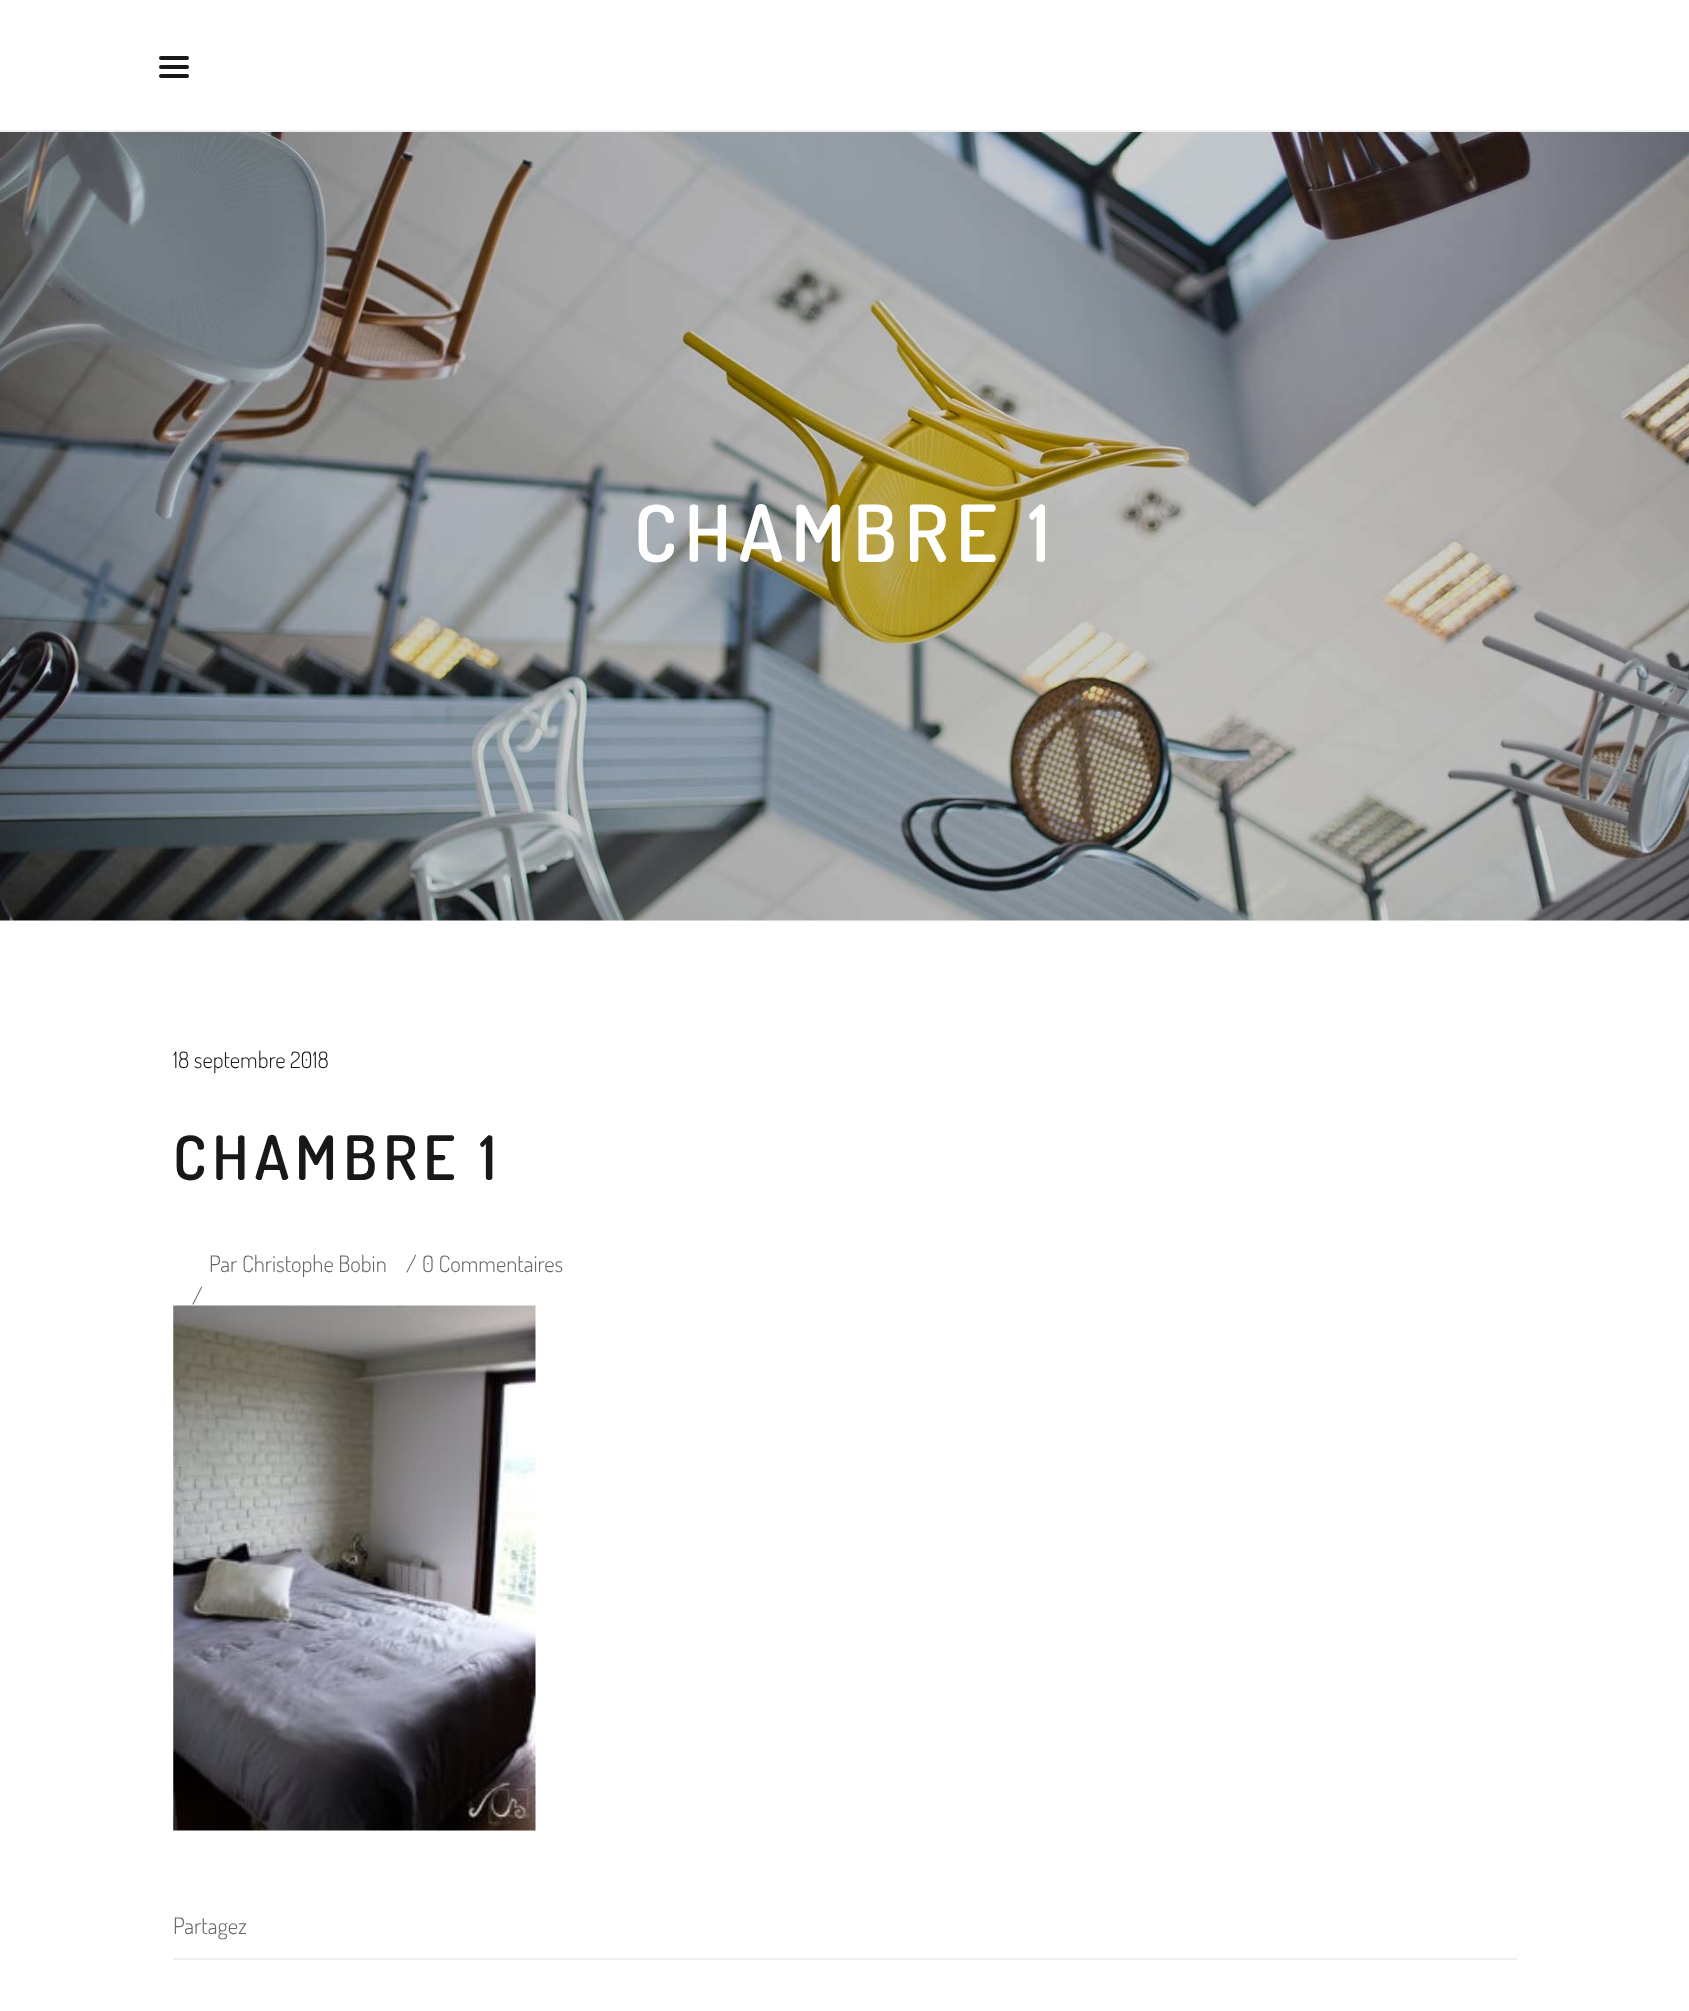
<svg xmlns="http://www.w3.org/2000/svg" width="1689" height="2011">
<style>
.a{font:600 78.75px Dosis;letter-spacing:7.9px;fill:#fff}
.b{font:300 22.75px Dosis;fill:#181818}
.c{font:600 61.25px Dosis;letter-spacing:6.1px;fill:#181818}
.d{font:300 22.75px Dosis;fill:#666}
</style>
<rect width="100%" height="100%" fill="#fff"/>
<path fill="#efefef" d="M0 130h1689v2H0z"/>
<rect fill="#181818" x="159" y="56" width="30" height="4" rx="2"/>
<rect fill="#181818" x="159" y="65" width="30" height="4" rx="2"/>
<rect fill="#181818" x="159" y="74" width="30" height="4" rx="2"/>
<image href="1.png" x="0" y="132" width="1689" height="789"/>
<path fill="#efefef" d="M173 1958h1344v2H173z"/>
<image href="2.png" x="173" y="1305" width="363" height="526"/>
<text class="a" x="634" y="562">CHAMBRE 1</text>
<text class="b" x="173" y="1068">18 septembre 2018</text>
<text class="c" x="173" y="1180">CHAMBRE 1</text>
<text class="d" x="209" y="1272">Par Christophe Bobin</text>
<text class="d" x="406" y="1272">/</text>
<text class="d" x="422" y="1272">0 Commentaires</text>
<text class="d" x="192" y="1304">/</text>
<text class="d" x="173" y="1934">Partagez</text>
</svg>
